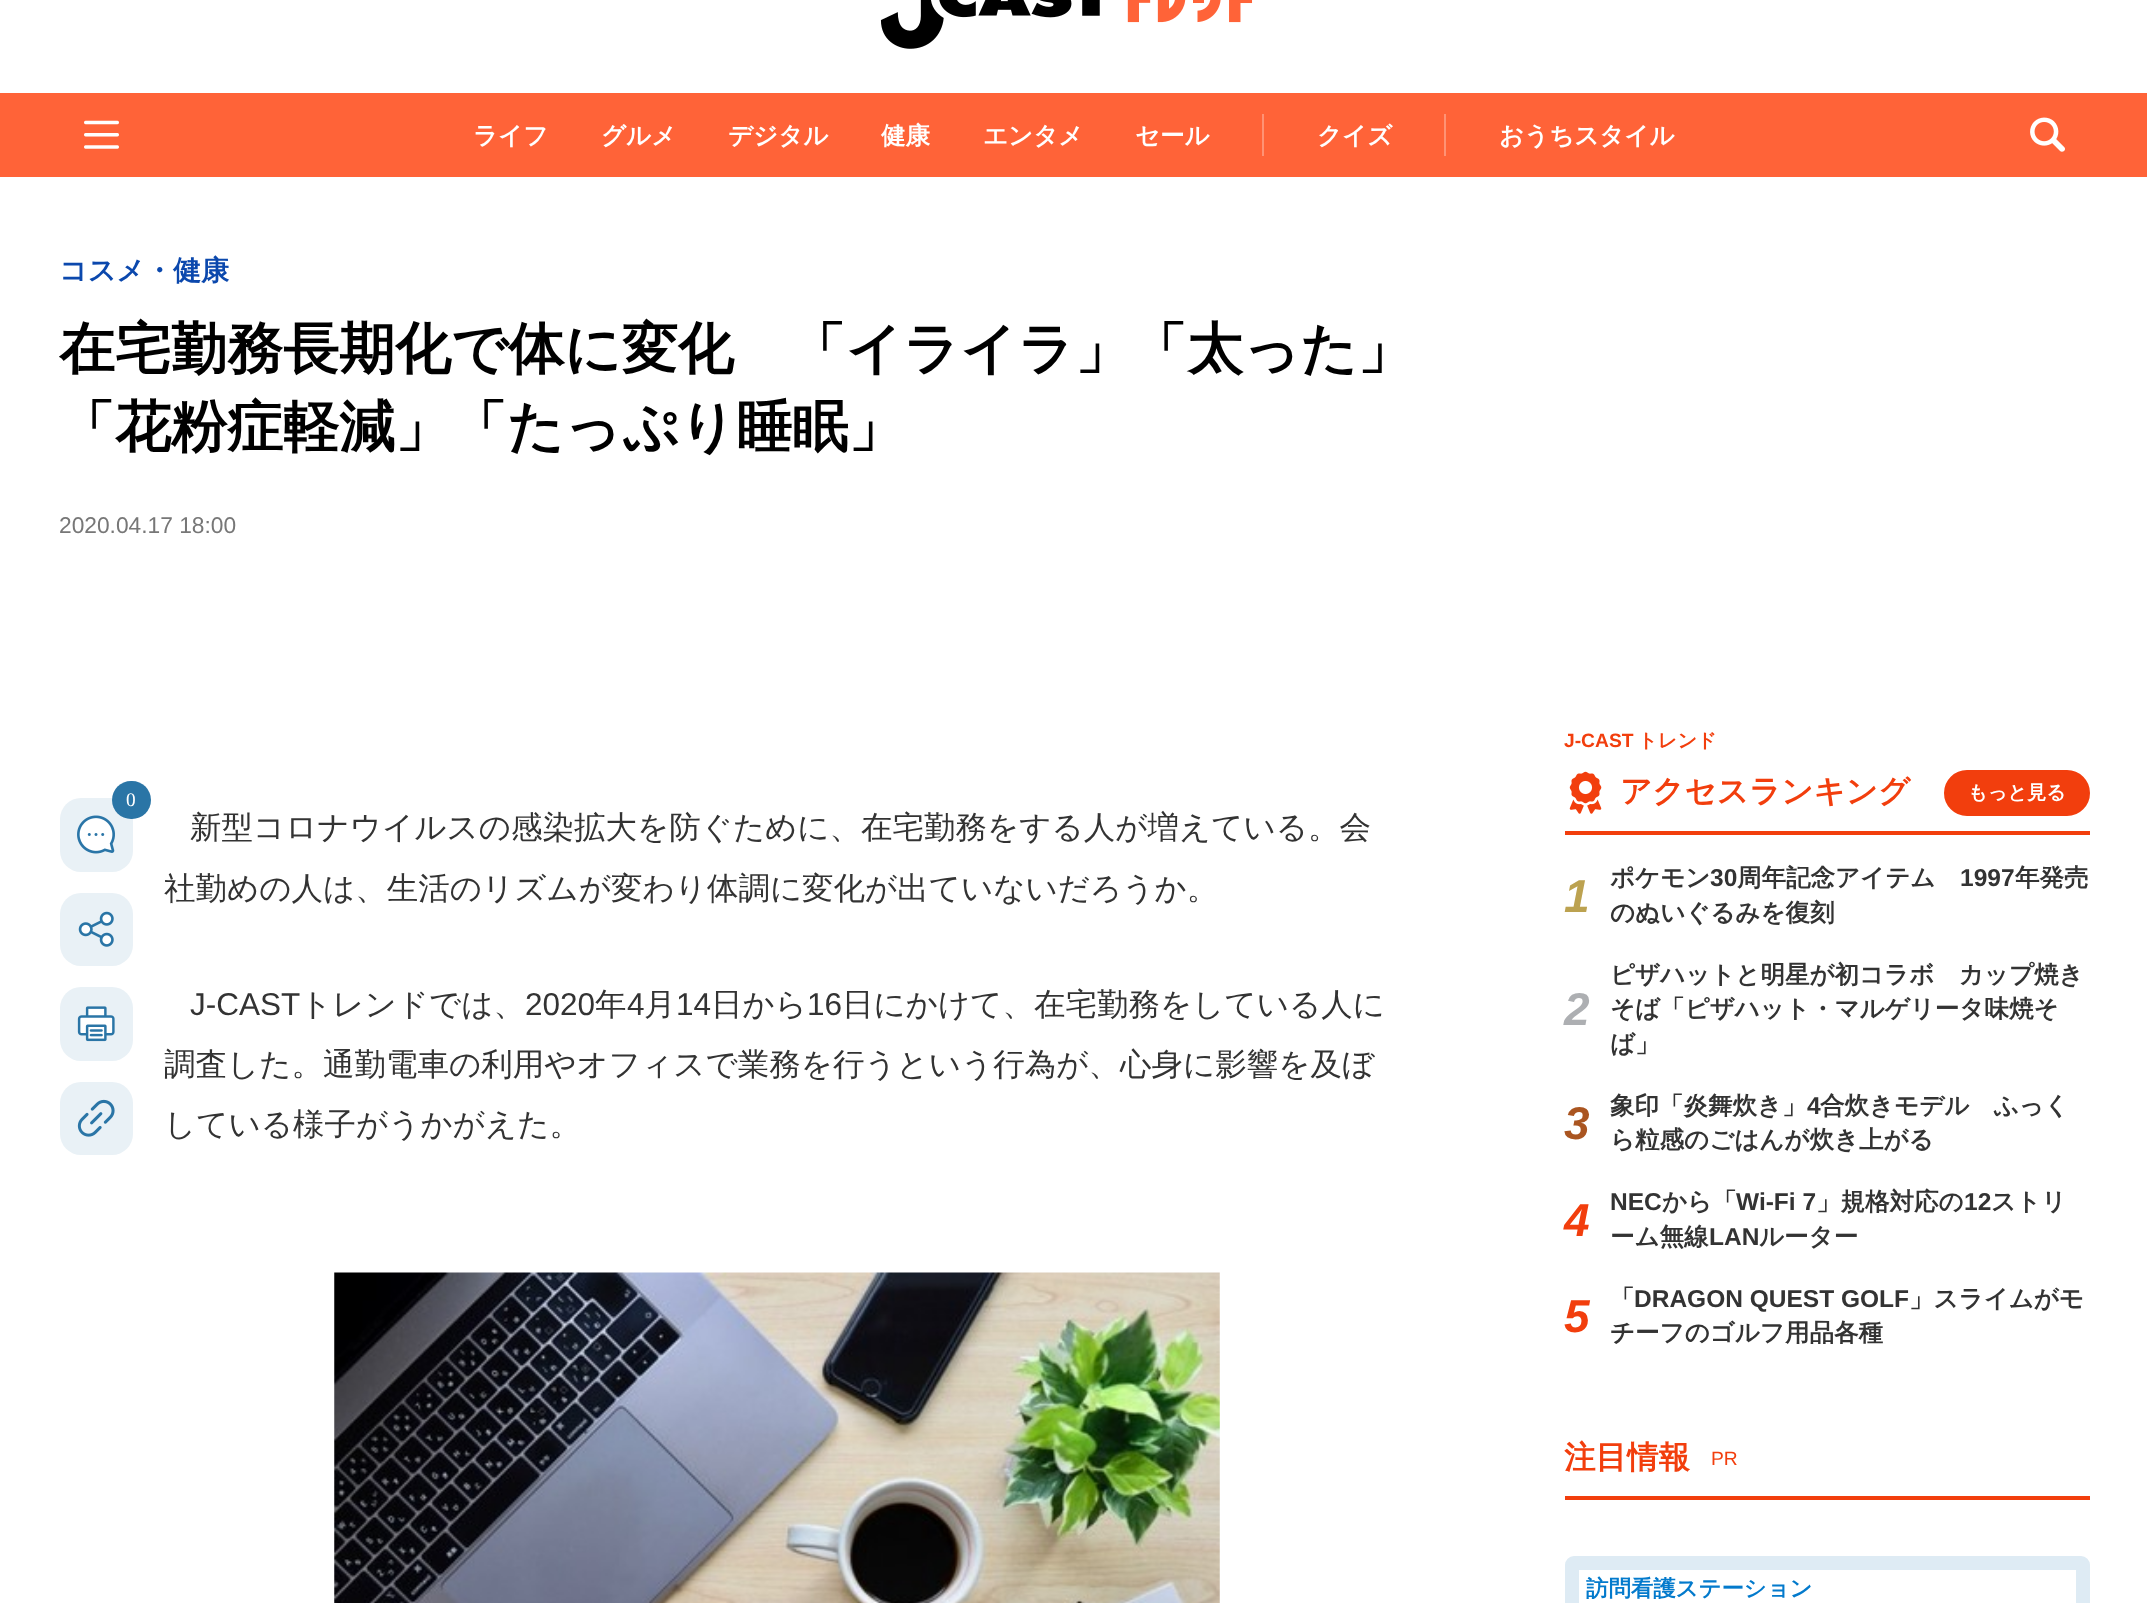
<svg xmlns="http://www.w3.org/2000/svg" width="2147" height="1603">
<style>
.a{font:bold 24.5px WenQuanYi Zen Hei;fill:#fff}
.b{font:bold 28px WenQuanYi Zen Hei;fill:#0b48ad}
.c{font:bold 56px WenQuanYi Zen Hei;fill:#000}
.d{font:22.75px Liberation Sans;fill:#777}
.e{font:19.25px Liberation Serif;fill:#fff}
.f{font:500 31.5px WenQuanYi Zen Hei;fill:#333}
.g{font:31.5px Liberation Sans;fill:#333}
.h{font:bold 19.25px Liberation Sans;fill:#f23e0d}
.i{font:bold 19.25px WenQuanYi Zen Hei;fill:#f23e0d}
.j{font:bold 31.5px WenQuanYi Zen Hei;fill:#f23e0d}
.k{font:bold 19.25px WenQuanYi Zen Hei;fill:#fff}
.l{font:italic bold 46px Liberation Sans;fill:#bca250}
.m{font:bold 24.5px WenQuanYi Zen Hei;fill:#333}
.n{font:bold 24.5px Liberation Sans;fill:#333}
.o{font:italic bold 46px Liberation Sans;fill:#adafb2}
.p{font:italic bold 46px Liberation Sans;fill:#aa5520}
.q{font:italic bold 46px Liberation Sans;fill:#f23e0d}
.r{font:19.25px Liberation Sans;fill:#f23e0d}
.s{font:bold 22.4px WenQuanYi Zen Hei;fill:#037acc}
</style>
<rect width="100%" height="100%" fill="#fff"/>
<image href="1.png" x="880" y="0" width="373" height="49"/>
<path fill="#ff6338" d="M0 93h2147v84H0z"/>
<image href="2.png" x="84" y="120" width="35" height="29"/>
<path fill="#ff9274" d="M1262 114h2v42H1262z"/>
<path fill="#ff9274" d="M1444 114h2v42H1444z"/>
<image href="3.png" x="2030" y="117" width="35" height="35"/>
<rect fill="#e9f1f6" x="60" y="798" width="73" height="74" rx="21"/>
<image href="4.png" x="77" y="815" width="38" height="39"/>
<rect fill="#2a75a6" x="112" y="781" width="39" height="38" rx="19"/>
<rect fill="#e9f1f6" x="60" y="893" width="73" height="73" rx="21"/>
<image href="5.png" x="78" y="911" width="36" height="36"/>
<rect fill="#e9f1f6" x="60" y="987" width="73" height="74" rx="21"/>
<image href="6.png" x="77" y="1006" width="38" height="36"/>
<rect fill="#e9f1f6" x="60" y="1082" width="73" height="73" rx="21"/>
<image href="7.png" x="77" y="1099" width="38" height="38"/>
<image href="8.png" x="334" y="1272" width="886" height="331"/>
<path fill="#f23e0d" d="M1565 831h525v4H1565z"/>
<image href="9.png" x="1569" y="771" width="33" height="43"/>
<rect fill="#f23e0d" stroke="#f23e0d" stroke-width="2" x="1945" y="771" width="144" height="44" rx="22"/>
<path fill="#f23e0d" d="M1565 1496h525v4H1565z"/>
<rect fill="none" stroke="#deebf4" stroke-width="14" x="1572" y="1563" width="511" height="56" rx="2"/>
<text class="a" x="473" y="144">ライフ</text>
<text class="a" x="601" y="144">グルメ</text>
<text class="a" x="728" y="144">デジタル</text>
<text class="a" x="881" y="144">健康</text>
<text class="a" x="983" y="144">エンタメ</text>
<text class="a" x="1135" y="144">セール</text>
<text class="a" x="1317" y="144">クイズ</text>
<text class="a" x="1499" y="144">おうちスタイル</text>
<text class="b" x="59" y="280">コスメ・健康</text>
<text class="c" x="59" y="368">在宅勤務長期化で体に変化　「イライラ」「太った」</text>
<text class="c" x="59" y="446">「花粉症軽減」「たっぷり睡眠」</text>
<text class="d" x="59" y="533">2020.04.17 18:00</text>
<text class="e" x="126" y="806">0</text>
<text class="f" x="190" y="838">新型コロナウイルスの感染拡大を防ぐために、在宅勤務をする人が増えている。会</text>
<text class="f" x="164" y="899">社勤めの人は、生活のリズムが変わり体調に変化が出ていないだろうか。</text>
<text class="g" x="190" y="1015">J-CAST</text>
<text class="f" x="300" y="1015">トレンドでは、</text>
<text class="g" x="525" y="1015">2020</text>
<text class="f" x="595" y="1015">年</text>
<text class="g" x="627" y="1015">4</text>
<text class="f" x="644" y="1015">月</text>
<text class="g" x="676" y="1015">14</text>
<text class="f" x="711" y="1015">日から</text>
<text class="g" x="807" y="1015">16</text>
<text class="f" x="842" y="1015">日にかけて、在宅勤務をしている人に</text>
<text class="f" x="164" y="1075">調査した。通勤電車の利用やオフィスで業務を行うという行為が、心身に影響を及ぼ</text>
<text class="f" x="164" y="1135">している様子がうかがえた。</text>
<text class="h" x="1564" y="747">J-CAST</text>
<text class="i" x="1638" y="747">トレンド</text>
<text class="j" x="1620" y="802">アクセスランキング</text>
<text class="k" x="1968" y="799">もっと見る</text>
<text class="l" x="1564" y="912">1</text>
<text class="m" x="1610" y="886">ポケモン</text>
<text class="n" x="1710" y="886">30</text>
<text class="m" x="1737" y="886">周年記念アイテム</text>
<text class="n" x="1960" y="886">1997</text>
<text class="m" x="2015" y="886">年発売</text>
<text class="m" x="1610" y="921">のぬいぐるみを復刻</text>
<text class="o" x="1564" y="1025">2</text>
<text class="m" x="1610" y="983">ピザハットと明星が初コラボ　カップ焼き</text>
<text class="m" x="1610" y="1017">そば「ピザハット・マルゲリータ味焼そ</text>
<text class="m" x="1610" y="1052">ば」</text>
<text class="p" x="1564" y="1139">3</text>
<text class="m" x="1610" y="1114">象印「炎舞炊き」</text>
<text class="n" x="1807" y="1114">4</text>
<text class="m" x="1820" y="1114">合炊きモデル　ふっく</text>
<text class="m" x="1610" y="1148">ら粒感のごはんが炊き上がる</text>
<text class="q" x="1564" y="1236">4</text>
<text class="n" x="1610" y="1210">NEC</text>
<text class="m" x="1662" y="1210">から「</text>
<text class="n" x="1736" y="1210">Wi-Fi 7</text>
<text class="m" x="1816" y="1210">」規格対応の</text>
<text class="n" x="1964" y="1210">12</text>
<text class="m" x="1991" y="1210">ストリ</text>
<text class="m" x="1610" y="1245">ーム無線</text>
<text class="n" x="1709" y="1245">LAN</text>
<text class="m" x="1759" y="1245">ルーター</text>
<text class="q" x="1564" y="1332">5</text>
<text class="m" x="1610" y="1307">「</text>
<text class="n" x="1634" y="1307">DRAGON QUEST GOLF</text>
<text class="m" x="1909" y="1307">」スライムがモ</text>
<text class="m" x="1610" y="1341">チーフのゴルフ用品各種</text>
<text class="j" x="1564" y="1468">注目情報</text>
<text class="r" x="1711" y="1465">PR</text>
<text class="s" x="1586" y="1596">訪問看護ステーション</text>
</svg>
